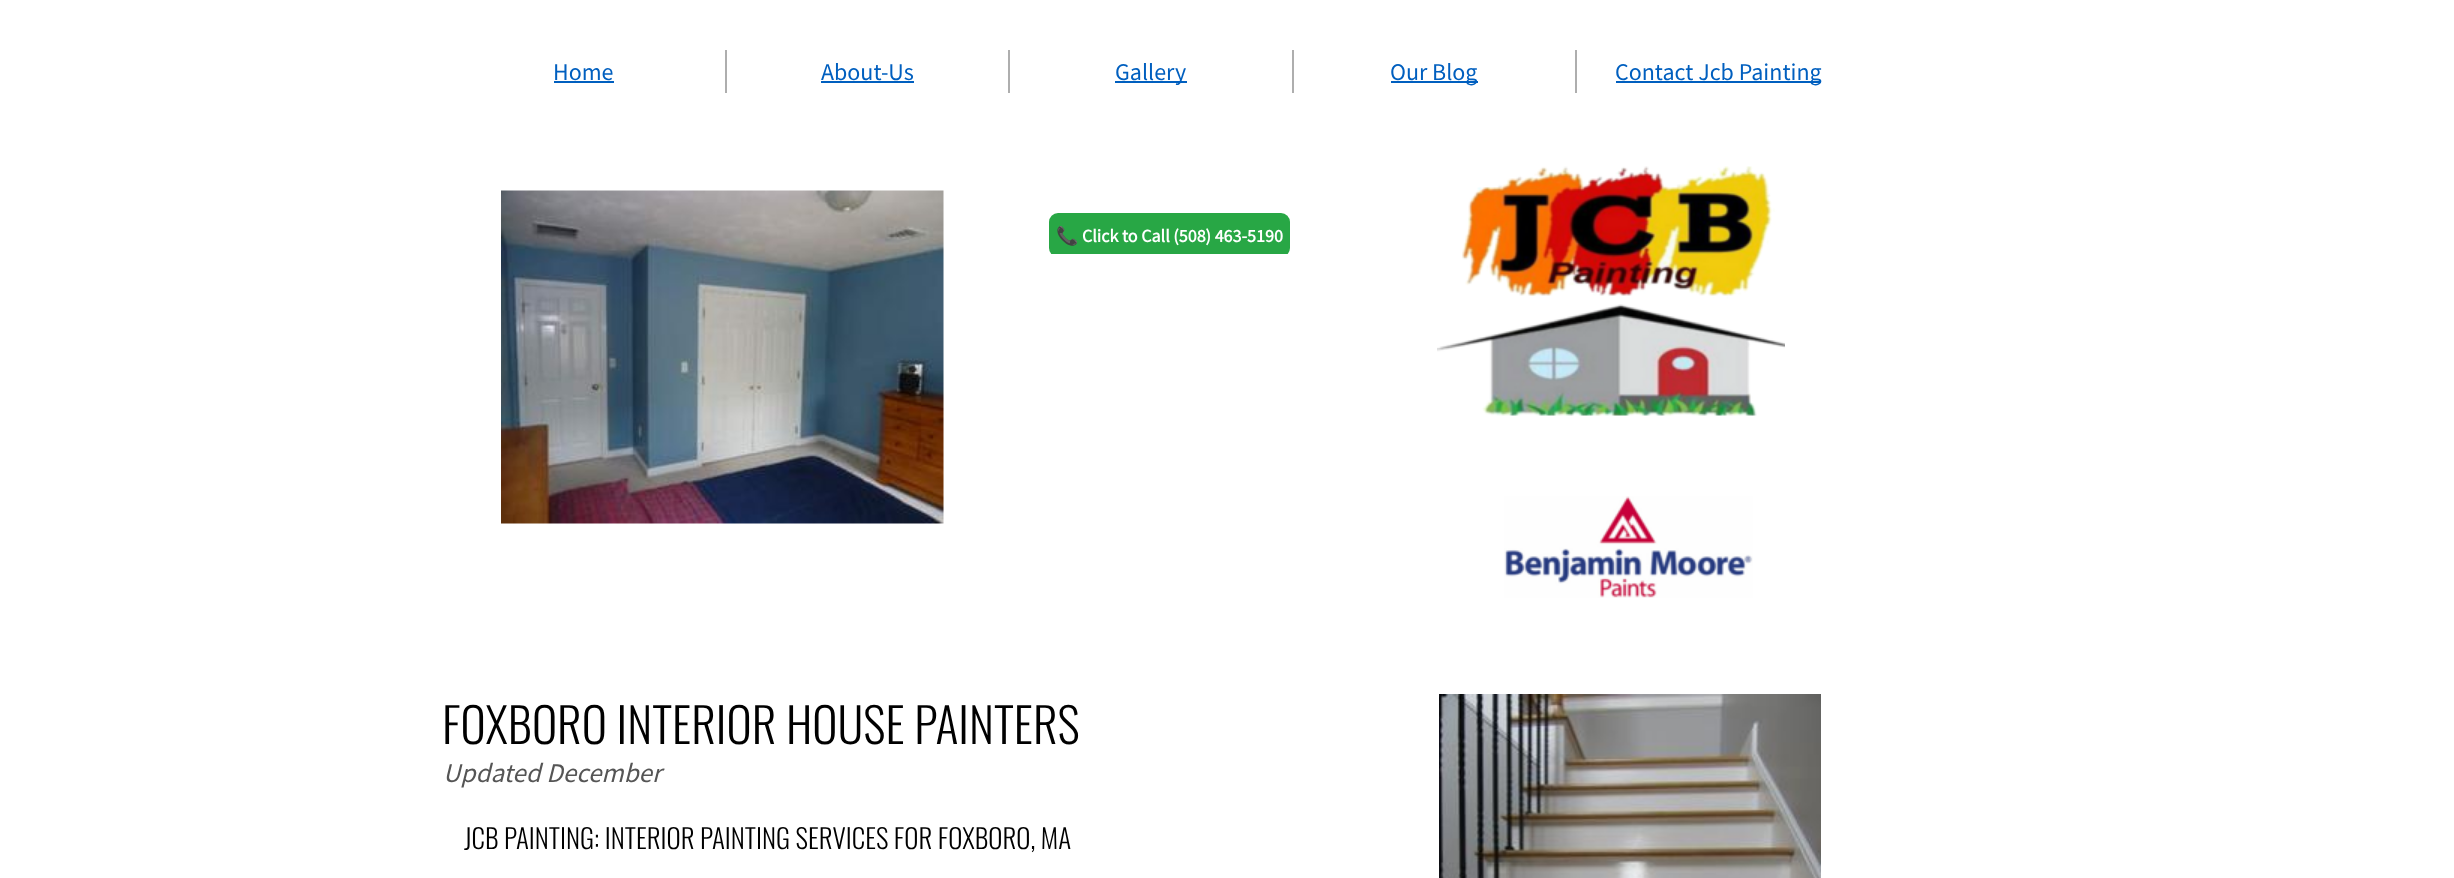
<svg xmlns="http://www.w3.org/2000/svg" width="2454" height="878">
<style>
.a{font:24px Source Sans Pro;fill:#005fbf}
.b{font:bold 18px Noto Color Emoji;fill:#fff}
.c{font:bold 18px Source Sans Pro;fill:#fff}
.d{font:300 48px Oswald;fill:#000}
.e{font:italic 27px Source Sans Pro;fill:#555}
.f{font:300 27px Oswald;fill:#000}
</style>
<defs>
<clipPath id="clip1"><path d="M1049 213h277v41H1049z"/></clipPath>
</defs>
<rect width="100%" height="100%" fill="#fff"/>
<path fill="#aeaeae" d="M725 50h2v43H725z"/>
<path fill="#005fbf" d="M554 81h60v2H554z"/>
<path fill="#aeaeae" d="M1008 50h2v43H1008z"/>
<path fill="#005fbf" d="M821 81h93v2H821z"/>
<path fill="#aeaeae" d="M1292 50h2v43H1292z"/>
<path fill="#005fbf" d="M1115 81h72v2H1115z"/>
<path fill="#aeaeae" d="M1575 50h2v43H1575z"/>
<path fill="#005fbf" d="M1391 81h87v2H1391z"/>
<path fill="#005fbf" d="M1616 81h205v2H1616z"/>
<image href="1.png" x="501" y="190" width="443" height="334"/>
<g clip-path="url(#clip1)">
<rect fill="#28a745" x="1049" y="213" width="241" height="44" rx="9"/>
</g>
<image href="2.png" x="1437" y="166" width="348" height="250"/>
<image href="3.png" x="1504" y="496" width="249" height="102"/>
<image href="4.png" x="1439" y="694" width="382" height="184"/>
<text class="a" x="553" y="80">Home</text>
<text class="a" x="821" y="80">About-Us</text>
<text class="a" x="1115" y="80">Gallery</text>
<text class="a" x="1390" y="80">Our Blog</text>
<text class="a" x="1615" y="80">Contact Jcb Painting</text>
<text class="b" x="1056" y="242">📞</text>
<text class="c" x="1082" y="242">Click to Call (508) 463-5190</text>
<text class="d" x="442" y="744">FOXBORO INTERIOR HOUSE PAINTERS</text>
<text class="e" x="443" y="782">Updated December</text>
<text class="f" x="464" y="849">JCB PAINTING: INTERIOR PAINTING SERVICES FOR FOXBORO, MA</text>
</svg>
